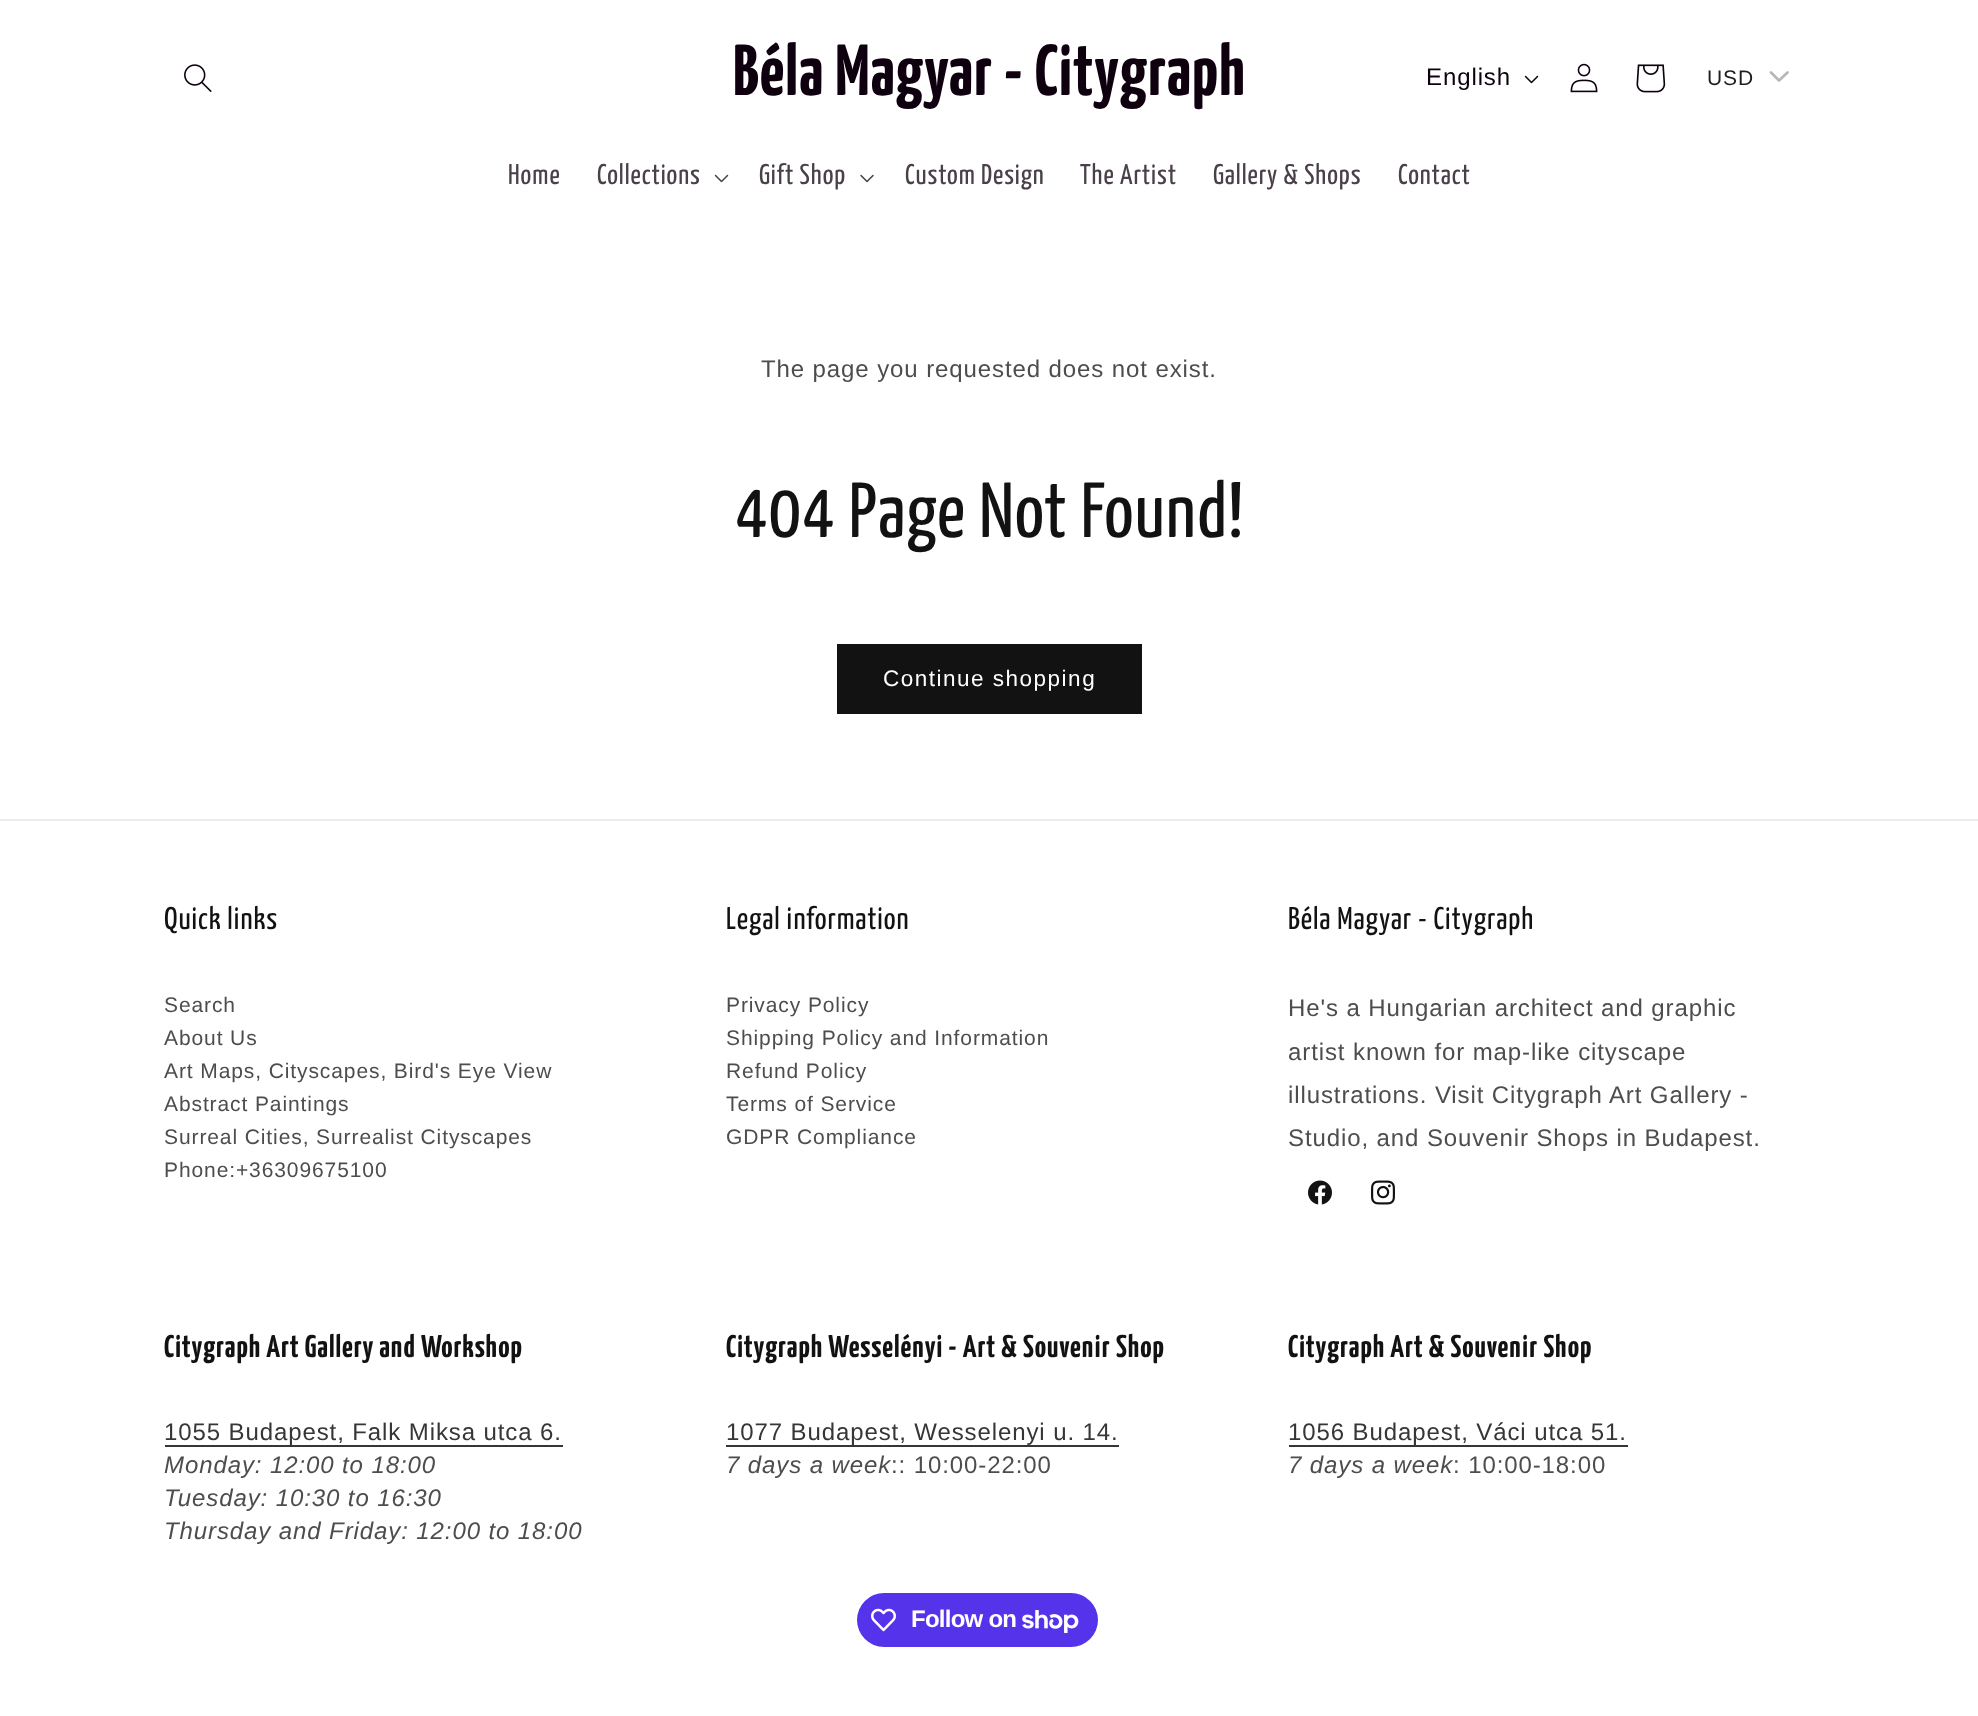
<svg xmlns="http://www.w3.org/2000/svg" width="1978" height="1716">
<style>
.a{font:bold 72px Yanone Kaffeesatz;letter-spacing:0.9px;fill:#0e000e}
.b{font:24px Liberation Sans;letter-spacing:0.9px;fill:#0e000e}
.c{font:21px Liberation Sans;letter-spacing:0.9px;fill:#1e1e1e}
.d{font:28.5px Yanone Kaffeesatz;letter-spacing:0.9px;fill:#4a404a}
.e{font:24px Liberation Sans;letter-spacing:0.9px;fill:#4d4d4d}
.f{font:78px Yanone Kaffeesatz;letter-spacing:0.9px;fill:#121212}
.g{font:22.5px Liberation Sans;letter-spacing:1.5px;fill:#fff}
.h{font:31.5px Yanone Kaffeesatz;letter-spacing:0.9px;fill:#121212}
.i{font:21px Liberation Sans;letter-spacing:0.9px;fill:#4d4d4d}
.j{font:bold 31.5px Yanone Kaffeesatz;letter-spacing:0.9px;fill:#121212}
.k{font:24px Liberation Sans;letter-spacing:0.9px;fill:#363636}
.l{font:italic 24px Liberation Sans;letter-spacing:0.9px;fill:#4d4d4d}
.m{font:bold 24px Liberation Sans;letter-spacing:-0.75px;fill:#fff}
</style>
<rect width="100%" height="100%" fill="#fff"/>
<image href="1.png" x="184" y="64" width="28" height="28"/>
<image href="2.png" x="1524" y="75" width="15" height="9"/>
<image href="3.png" x="1570" y="63" width="28" height="30"/>
<image href="4.png" x="1636" y="64" width="30" height="29"/>
<path fill="none" stroke="#b7b7b7" stroke-width="2.7" stroke-linecap="round" stroke-linejoin="round" d="M1771 72.5l8 8l8.5-8"/>
<image href="5.png" x="714" y="174" width="15" height="9"/>
<image href="6.png" x="860" y="174" width="14" height="9"/>
<path fill="#121212" d="M837 644h305v70H837z"/>
<path fill="#ececec" d="M0 819h1978v2H0z"/>
<image href="7.png" x="1308" y="1180" width="24" height="25"/>
<image href="8.png" x="1371" y="1180" width="24" height="25"/>
<path fill="#363636" d="M165 1445h398v2H165z"/>
<path fill="#363636" d="M726 1445h393v2H726z"/>
<path fill="#363636" d="M1289 1445h339v2H1289z"/>
<rect fill="#5433eb" x="857" y="1593" width="241" height="54" rx="27"/>
<image href="9.png" x="871" y="1608" width="25" height="24"/>
<image href="10.png" x="1022" y="1610" width="57" height="23"/>
<text class="a" x="733" y="95">Béla Magyar - Citygraph</text>
<text class="b" x="1426" y="85">English</text>
<text class="c" x="1707" y="85">USD</text>
<text class="d" x="508" y="184">Home</text>
<text class="d" x="597" y="184">Collections</text>
<text class="d" x="759" y="184">Gift Shop</text>
<text class="d" x="905" y="184">Custom Design</text>
<text class="d" x="1080" y="184">The Artist</text>
<text class="d" x="1213" y="184">Gallery &amp; Shops</text>
<text class="d" x="1398" y="184">Contact</text>
<text class="e" x="761" y="377">The page you requested does not exist.</text>
<text class="f" x="735" y="537">404 Page Not Found!</text>
<text class="g" x="883" y="686">Continue shopping</text>
<text class="h" x="164" y="929">Quick links</text>
<text class="i" x="164" y="1012">Search</text>
<text class="i" x="164" y="1045">About Us</text>
<text class="i" x="164" y="1078">Art Maps, Cityscapes, Bird's Eye View</text>
<text class="i" x="164" y="1111">Abstract Paintings</text>
<text class="i" x="164" y="1144">Surreal Cities, Surrealist Cityscapes</text>
<text class="i" x="164" y="1177">Phone:+36309675100</text>
<text class="h" x="726" y="929">Legal information</text>
<text class="i" x="726" y="1012">Privacy Policy</text>
<text class="i" x="726" y="1045">Shipping Policy and Information</text>
<text class="i" x="726" y="1078">Refund Policy</text>
<text class="i" x="726" y="1111">Terms of Service</text>
<text class="i" x="726" y="1144">GDPR Compliance</text>
<text class="h" x="1288" y="929">Béla Magyar - Citygraph</text>
<text class="e" x="1288" y="1016">He's a Hungarian architect and graphic</text>
<text class="e" x="1288" y="1060">artist known for map-like cityscape</text>
<text class="e" x="1288" y="1103">illustrations. Visit Citygraph Art Gallery -</text>
<text class="e" x="1288" y="1146">Studio, and Souvenir Shops in Budapest.</text>
<text class="j" x="164" y="1357">Citygraph Art Gallery and Workshop</text>
<text class="k" x="164" y="1440">1055 Budapest, Falk Miksa utca 6.</text>
<text class="l" x="164" y="1473">Monday: 12:00 to 18:00</text>
<text class="l" x="164" y="1506">Tuesday: 10:30 to 16:30</text>
<text class="l" x="164" y="1539">Thursday and Friday: 12:00 to 18:00</text>
<text class="j" x="726" y="1357">Citygraph Wesselényi - Art &amp; Souvenir Shop</text>
<text class="k" x="726" y="1440">1077 Budapest, Wesselenyi u. 14.</text>
<text class="l" x="726" y="1473">7 days a week</text>
<text class="e" x="891" y="1473">:: 10:00-22:00</text>
<text class="j" x="1288" y="1357">Citygraph Art &amp; Souvenir Shop</text>
<text class="k" x="1288" y="1440">1056 Budapest, Váci utca 51.</text>
<text class="l" x="1288" y="1473">7 days a week</text>
<text class="e" x="1453" y="1473">: 10:00-18:00</text>
<text class="m" x="911" y="1627">Follow on</text>
</svg>
